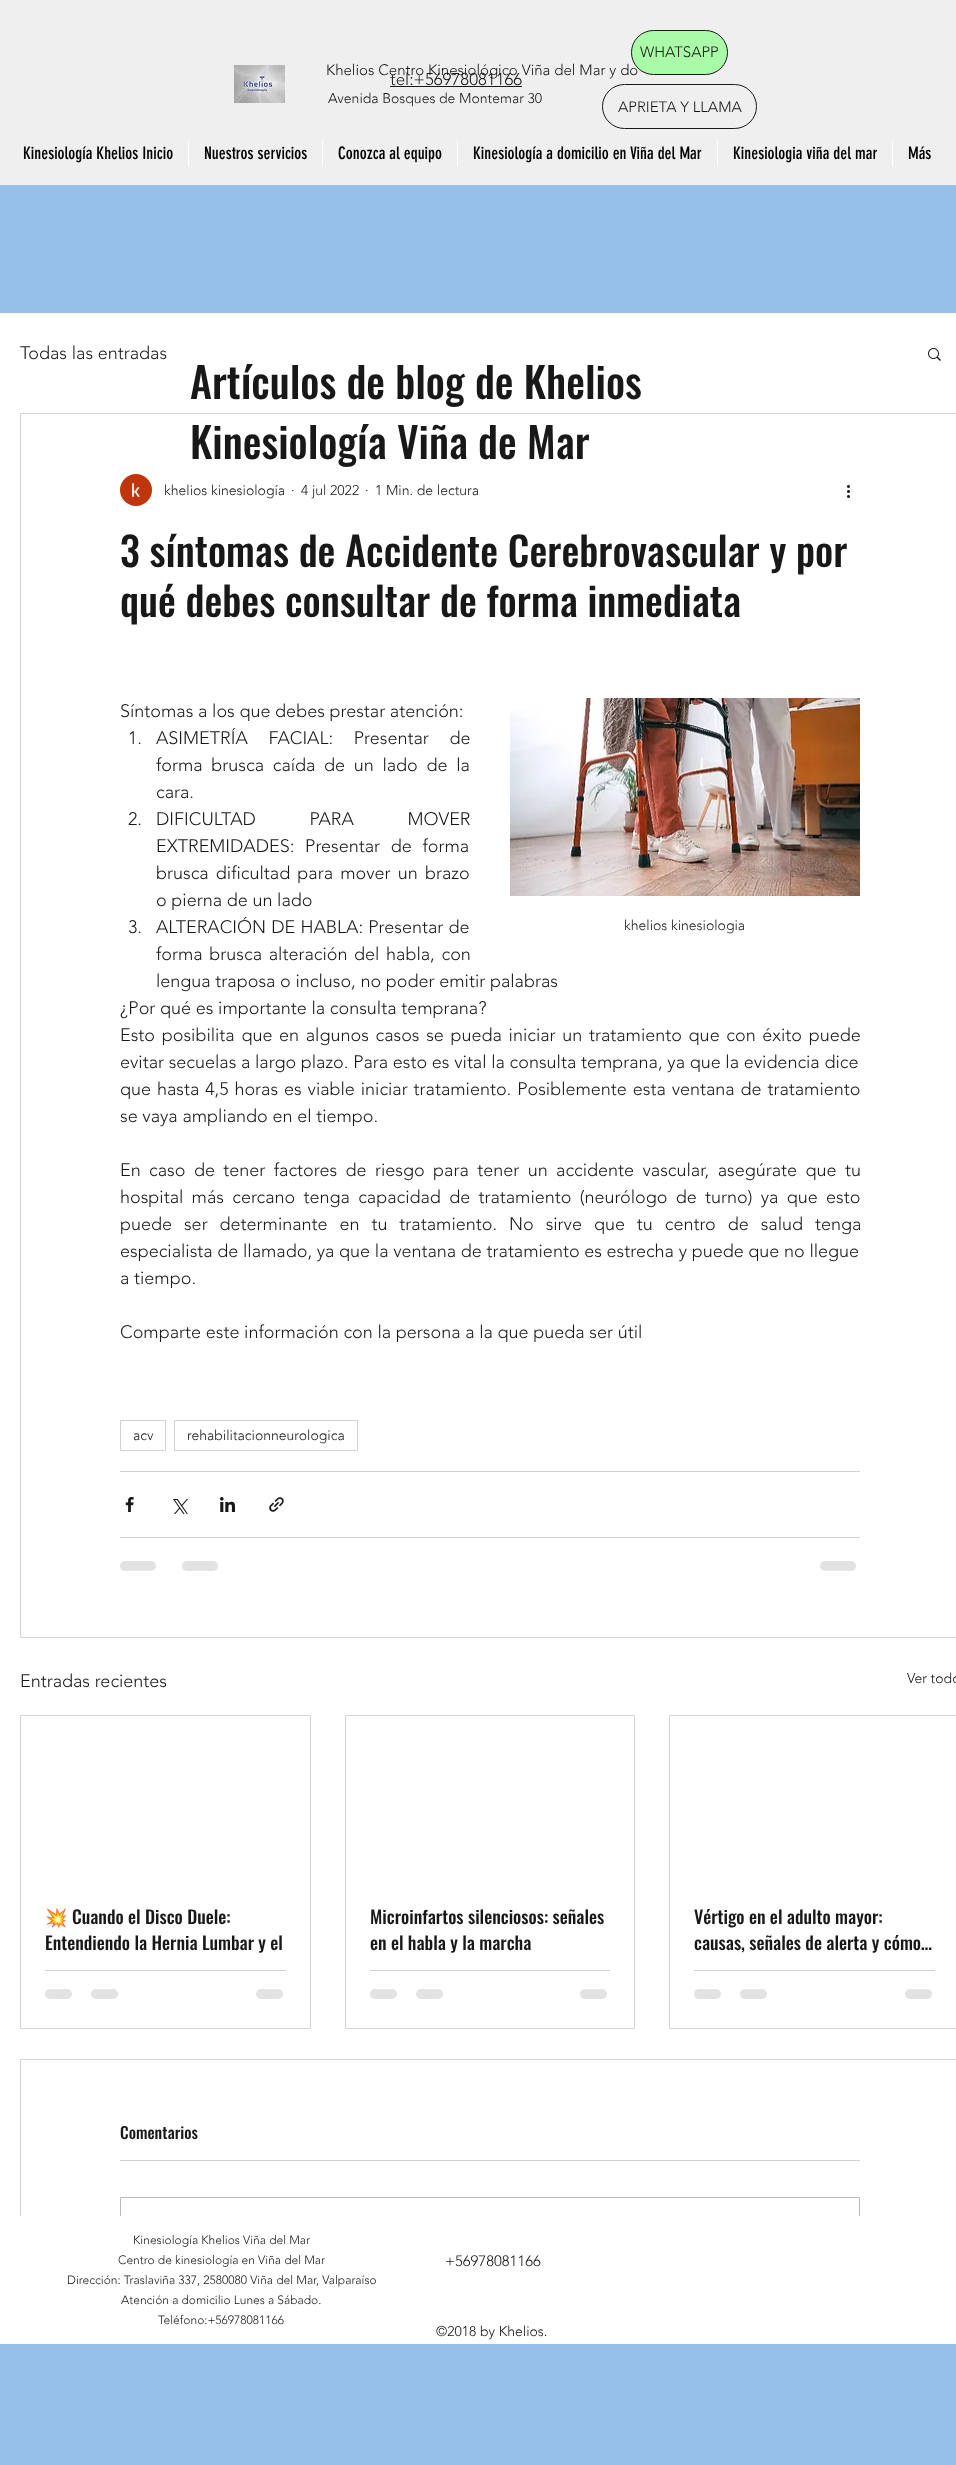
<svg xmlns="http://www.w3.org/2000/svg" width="956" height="2465">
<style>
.a{font:300 15px 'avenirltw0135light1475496';fill:#181818}
.b{font:300 17px 'avenirltw0135light1475496';fill:#181818}
.c{font:300 14px 'avenirltw0135light1475496';fill:#181818}
.d{font:17px 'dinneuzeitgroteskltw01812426';fill:#000}
.e{font:300 18px 'avenirltw0135light1475496';fill:#181818}
.f{font:500 40px Oswald;fill:#181818}
.g{font:18px Noto Color Emoji;fill:#181818}
.h{font:500 18px Oswald;fill:#181818}
.i{font:500 16px Oswald;fill:#181818}
.j{font:500 42px Oswald;fill:#181818}
.k{font:300 12px 'avenirltw0135light1475496';fill:#181818}
</style>
<rect width="100%" height="100%" fill="#97c0e8"/>
<path fill="#efefef" d="M0 0h956v185H0z"/>
<path fill="#181818" d="M390 86h132v1H390z"/>
<rect fill="none" stroke="#181818" x="602.5" y="84.5" width="154" height="44" rx="22"/>
<image href="1.png" x="234" y="65" width="51" height="38"/>
<path fill="#fff" d="M188 141h1v25H188z"/>
<path fill="#fff" d="M322 141h1v25H322z"/>
<path fill="#fff" d="M457 141h1v25H457z"/>
<path fill="#fff" d="M717 141h1v25H717z"/>
<path fill="#fff" d="M892 141h1v25H892z"/>
<path fill="#fff" d="M0 313h956v1903H0z"/>
<image href="2.png" x="928" y="348" width="13" height="13"/>
<path fill="none" stroke="#d4d4d4" d="M20.5 413.5h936v1224H20.5z"/>
<image href="3.png" x="120" y="474" width="32" height="32"/>
<image href="4.png" x="847" y="485" width="3" height="13"/>
<image href="5.png" x="510" y="698" width="350" height="198"/>
<path fill="none" stroke="#d1d1d1" d="M120.5 1420.5h45v30H120.5z"/>
<path fill="none" stroke="#d1d1d1" d="M174.5 1420.5h183v30H174.5z"/>
<path fill="#d1d1d1" d="M120 1471h740v1H120z"/>
<image href="6.png" x="125" y="1497" width="9" height="15"/>
<image href="7.png" x="173" y="1499" width="15" height="15"/>
<image href="8.png" x="220" y="1497" width="15" height="15"/>
<image href="9.png" x="269" y="1497" width="15" height="15"/>
<path fill="#d1d1d1" d="M120 1537h740v1H120z"/>
<rect fill="#e3e3e3" x="120" y="1561" width="36" height="10" rx="5"/>
<rect fill="#e3e3e3" x="182" y="1561" width="36" height="10" rx="5"/>
<rect fill="#e3e3e3" x="820" y="1561" width="36" height="10" rx="5"/>
<path fill="none" stroke="#d4d4d4" d="M20.5 1715.5h290v313H20.5z"/>
<path fill="#d1d1d1" d="M45 1970h241v1H45z"/>
<rect fill="#e3e3e3" x="45" y="1989" width="27" height="10" rx="5"/>
<rect fill="#e3e3e3" x="91" y="1989" width="27" height="10" rx="5"/>
<rect fill="#e3e3e3" x="256" y="1989" width="27" height="10" rx="5"/>
<path fill="none" stroke="#d4d4d4" d="M345.5 1715.5h289v313H345.5z"/>
<path fill="#d1d1d1" d="M370 1970h240v1H370z"/>
<rect fill="#e3e3e3" x="370" y="1989" width="27" height="10" rx="5"/>
<rect fill="#e3e3e3" x="416" y="1989" width="27" height="10" rx="5"/>
<rect fill="#e3e3e3" x="580" y="1989" width="27" height="10" rx="5"/>
<path fill="none" stroke="#d4d4d4" d="M669.5 1715.5h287v313H669.5z"/>
<path fill="#d1d1d1" d="M694 1970h241v1H694z"/>
<rect fill="#e3e3e3" x="694" y="1989" width="27" height="10" rx="5"/>
<rect fill="#e3e3e3" x="740" y="1989" width="27" height="10" rx="5"/>
<rect fill="#e3e3e3" x="905" y="1989" width="27" height="10" rx="5"/>
<path fill="none" stroke="#d4d4d4" d="M20.5 2059.5h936v264H20.5z"/>
<path fill="#d1d1d1" d="M120 2160h740v1H120z"/>
<path fill="none" stroke="#bababa" d="M120.5 2197.5h739v57H120.5z"/>
<path fill="#fff" d="M0 2216h956v128H0z"/>
<text class="a" x="618" y="112">APRIETA Y LLAMA</text>
<text class="a" x="326" y="75">Khelios Centro Kinesiológico Viña del Mar y do</text>
<rect fill="#a9fba7" stroke="#181818" x="631.5" y="30.5" width="96" height="44" rx="22"/>
<text class="a" x="640" y="57">WHATSAPP</text>
<text class="b" x="390" y="85">tel:+56978081166</text>
<text class="c" x="328" y="103">Avenida Bosques de Montemar 30</text>
<text class="d" x="23" y="159">Kinesiología Khelios Inicio</text>
<text class="d" x="204" y="159">Nuestros servicios</text>
<text class="d" x="338" y="159">Conozca al equipo</text>
<text class="d" x="473" y="159">Kinesiología a domicilio en Viña del Mar</text>
<text class="d" x="733" y="159">Kinesiologia viña del mar</text>
<text class="d" x="908" y="159">Más</text>
<text class="e" x="20" y="359">Todas las entradas</text>
<text class="c" x="164" y="495">khelios kinesiología</text>
<text class="c" x="291" y="495">·</text>
<text class="c" x="301" y="495">4 jul 2022</text>
<text class="c" x="365" y="495">·</text>
<text class="c" x="375" y="495">1 Min. de lectura</text>
<text class="f" x="120" y="567">3 síntomas de Accidente Cerebrovascular y por</text>
<text class="f" x="120" y="617">qué debes consultar de forma inmediata</text>
<text class="e" x="120" y="717">Síntomas a los que debes prestar atención:</text>
<text class="e" x="128" y="744">1.</text>
<text class="e" x="156" y="744" word-spacing="16">ASIMETRÍA FACIAL: Presentar de</text>
<text class="e" x="156" y="771" word-spacing="4">forma brusca caída de un lado de la</text>
<text class="e" x="156" y="798">cara.</text>
<text class="e" x="128" y="825">2.</text>
<text class="e" x="156" y="825" word-spacing="49">DIFICULTAD PARA MOVER</text>
<text class="e" x="156" y="852" word-spacing="6">EXTREMIDADES: Presentar de forma</text>
<text class="e" x="156" y="879" word-spacing="2.5">brusca dificultad para mover un brazo</text>
<text class="e" x="156" y="906">o pierna de un lado</text>
<text class="e" x="128" y="933">3.</text>
<text class="e" x="156" y="933" word-spacing="0.5">ALTERACIÓN DE HABLA: Presentar de</text>
<text class="e" x="156" y="960" word-spacing="2">forma brusca alteración del habla, con</text>
<text class="e" x="156" y="987">lengua traposa o incluso, no poder emitir palabras</text>
<text class="c" x="624" y="930">khelios kinesiologia</text>
<text class="e" x="120" y="1014">¿Por qué es importante la consulta temprana?</text>
<text class="e" x="120" y="1041" word-spacing="2">Esto posibilita que en algunos casos se pueda iniciar un tratamiento que con éxito puede</text>
<text class="e" x="120" y="1068">evitar secuelas a largo plazo. Para esto es vital la consulta temprana, ya que la evidencia dice</text>
<text class="e" x="120" y="1095" word-spacing="1.2">que hasta 4,5 horas es viable iniciar tratamiento. Posiblemente esta ventana de tratamiento</text>
<text class="e" x="120" y="1122">se vaya ampliando en el tiempo.</text>
<text class="e" x="120" y="1176" word-spacing="3.75">En caso de tener factores de riesgo para tener un accidente vascular, asegúrate que tu</text>
<text class="e" x="120" y="1203" word-spacing="3.6">hospital más cercano tenga capacidad de tratamiento (neurólogo de turno) ya que esto</text>
<text class="e" x="120" y="1230" word-spacing="7.25">puede ser determinante en tu tratamiento. No sirve que tu centro de salud tenga</text>
<text class="e" x="120" y="1257">especialista de llamado, ya que la ventana de tratamiento es estrecha y puede que no llegue</text>
<text class="e" x="120" y="1284">a tiempo.</text>
<text class="e" x="120" y="1338">Comparte este información con la persona a la que pueda ser útil</text>
<text class="c" x="133" y="1440">acv</text>
<text class="c" x="187" y="1440">rehabilitacionneurologica</text>
<text class="e" x="20" y="1687">Entradas recientes</text>
<text class="c" x="907" y="1683">Ver todo</text>
<text class="g" x="45" y="1924">💥</text>
<text class="h" x="72" y="1924">Cuando el Disco Duele:</text>
<text class="h" x="45" y="1950">Entendiendo la Hernia Lumbar y el</text>
<text class="h" x="370" y="1924">Microinfartos silenciosos: señales</text>
<text class="h" x="370" y="1950">en el habla y la marcha</text>
<text class="h" x="694" y="1924">Vértigo en el adulto mayor:</text>
<text class="h" x="694" y="1950">causas, señales de alerta y cómo…</text>
<text class="i" x="120" y="2139">Comentarios</text>
<text class="j" x="190" y="399">Artículos de blog de Khelios</text>
<text class="j" x="190" y="459">Kinesiología Viña de Mar</text>
<text class="k" x="133" y="2244">Kinesiología Khelios Viña del Mar</text>
<text class="k" x="118" y="2264">Centro de kinesiología en Viña del Mar</text>
<text class="k" x="67" y="2284">Dirección: Traslaviña 337, 2580080 Viña del Mar, Valparaíso</text>
<text class="k" x="121" y="2304">Atención a domicilio Lunes a Sábado.</text>
<text class="k" x="158" y="2324">Teléfono:+56978081166</text>
<text class="a" x="445" y="2266">+56978081166</text>
<text class="c" x="436" y="2336">©2018 by Khelios.</text>
</svg>
